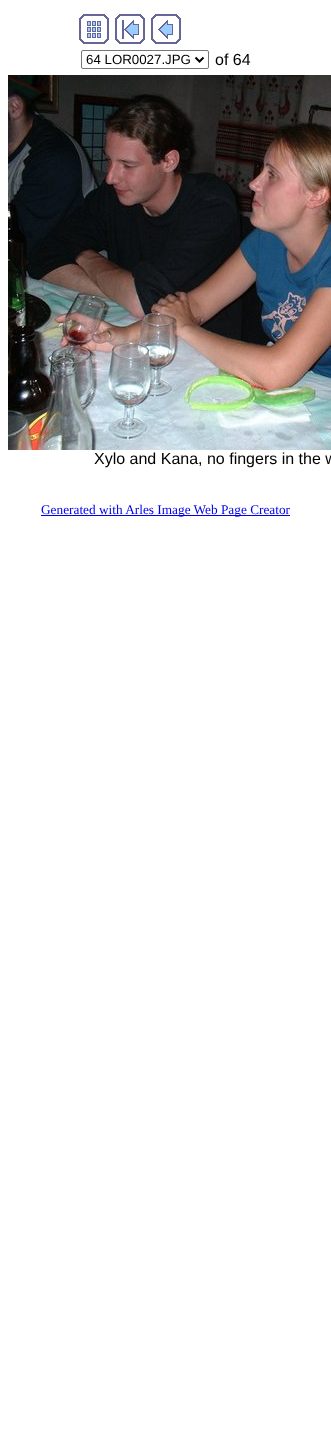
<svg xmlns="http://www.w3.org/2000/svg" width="331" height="1447">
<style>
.a{font:13.3px Liberation Sans;fill:#000}
.b{font:16px Liberation Sans;fill:#000}
.c{font:13.3px Liberation Serif;fill:#00e}
</style>
<rect width="100%" height="100%" fill="#fff"/>
<image href="1.png" x="79" y="14" width="30" height="30"/>
<image href="2.png" x="115" y="14" width="30" height="30"/>
<image href="3.png" x="151" y="14" width="30" height="30"/>
<rect fill="none" stroke="#767676" x="81.5" y="50.5" width="127" height="18" rx="1.5"/>
<path fill="none" stroke="#000" stroke-width="2" d="M195.5 57.5l4 4l4-4"/>
<image href="4.png" x="8" y="75" width="323" height="375"/>
<path fill="#00e" d="M41 515h249v1H41z"/>
<text class="a" x="86" y="64">64 LOR0027.JPG</text>
<text class="b" x="215" y="65">of 64</text>
<text class="b" x="94" y="464">Xylo and Kana, no fingers in the w</text>
<text class="c" x="41" y="514">Generated with Arles Image Web Page Creator</text>
</svg>
